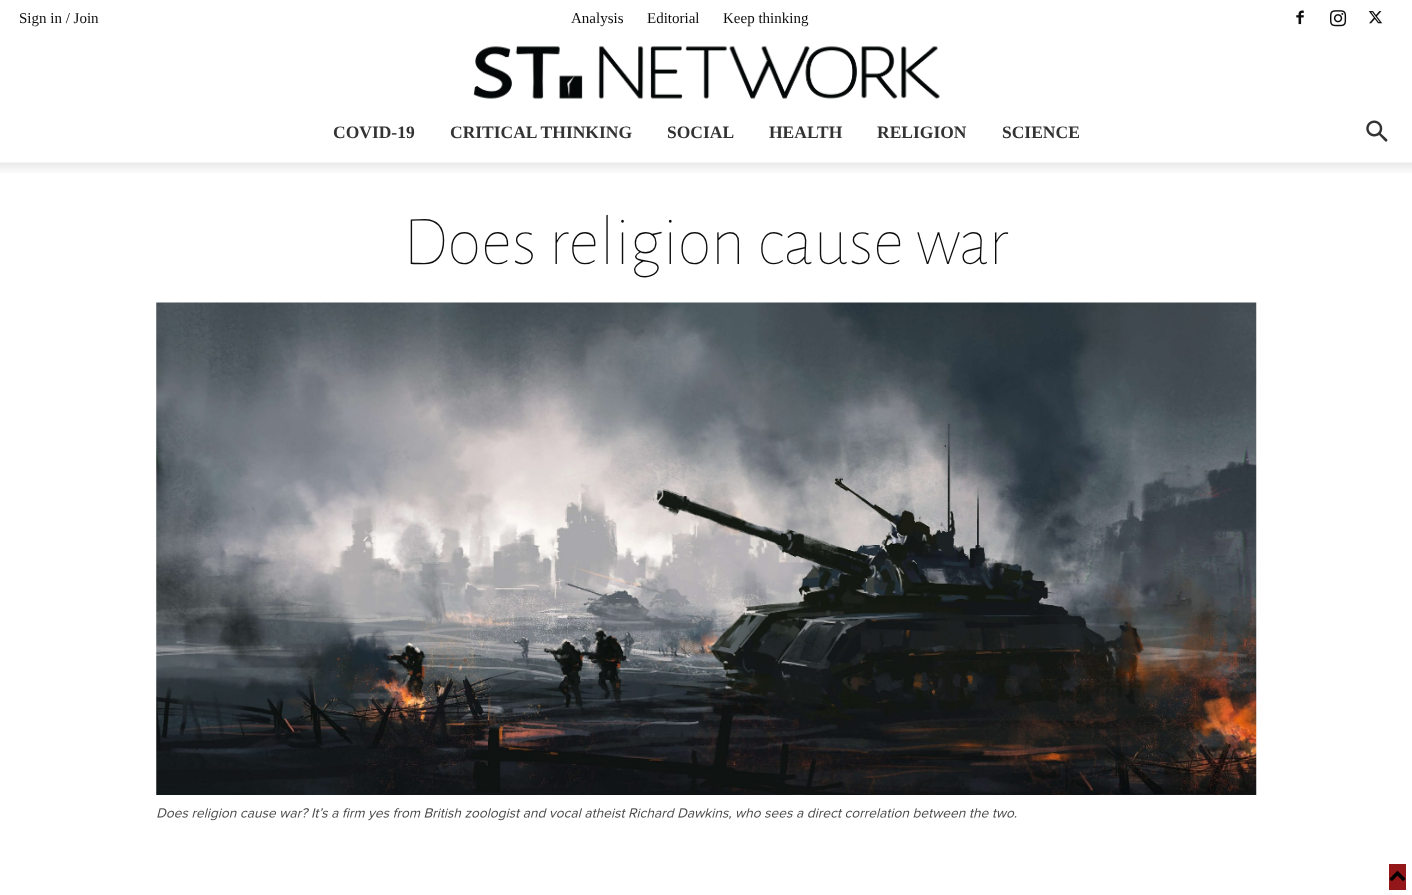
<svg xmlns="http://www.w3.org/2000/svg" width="1412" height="895">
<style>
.a{font:15px Liberation Serif;fill:#0d0d0d}
.b{font:bold 17.5px Liberation Serif;fill:#333}
.c{font:100 70px Alegreya Sans;letter-spacing:-0.4px;fill:#0d0d0d}
</style>
<rect width="100%" height="100%" fill="#fff"/>
<image href="1.png" x="1296" y="10" width="8" height="15"/>
<image href="2.png" x="1330" y="10" width="17" height="17"/>
<image href="3.png" x="1368" y="11" width="15" height="13"/>
<image href="4.png" x="473" y="46" width="467" height="53"/>
<image href="5.png" x="1366" y="120" width="22" height="22"/>
<image href="6.png" x="0" y="162" width="1412" height="11"/>
<image href="7.png" x="156" y="302" width="1101" height="493"/>
<image href="8.png" x="157" y="808" width="860" height="13"/>
<path fill="#931619" d="M1389 864h17v26H1389z"/>
<image href="9.png" x="1389" y="871" width="17" height="10"/>
<text class="a" x="19" y="23">Sign in / Join</text>
<text class="a" x="571" y="23">Analysis</text>
<text class="a" x="647" y="23">Editorial</text>
<text class="a" x="723" y="23">Keep thinking</text>
<text class="b" x="333" y="138">COVID-19</text>
<text class="b" x="450" y="138">CRITICAL THINKING</text>
<text class="b" x="667" y="138">SOCIAL</text>
<text class="b" x="769" y="138">HEALTH</text>
<text class="b" x="877" y="138">RELIGION</text>
<text class="b" x="1002" y="138">SCIENCE</text>
<text class="c" x="403" y="264">Does religion cause war</text>
</svg>
